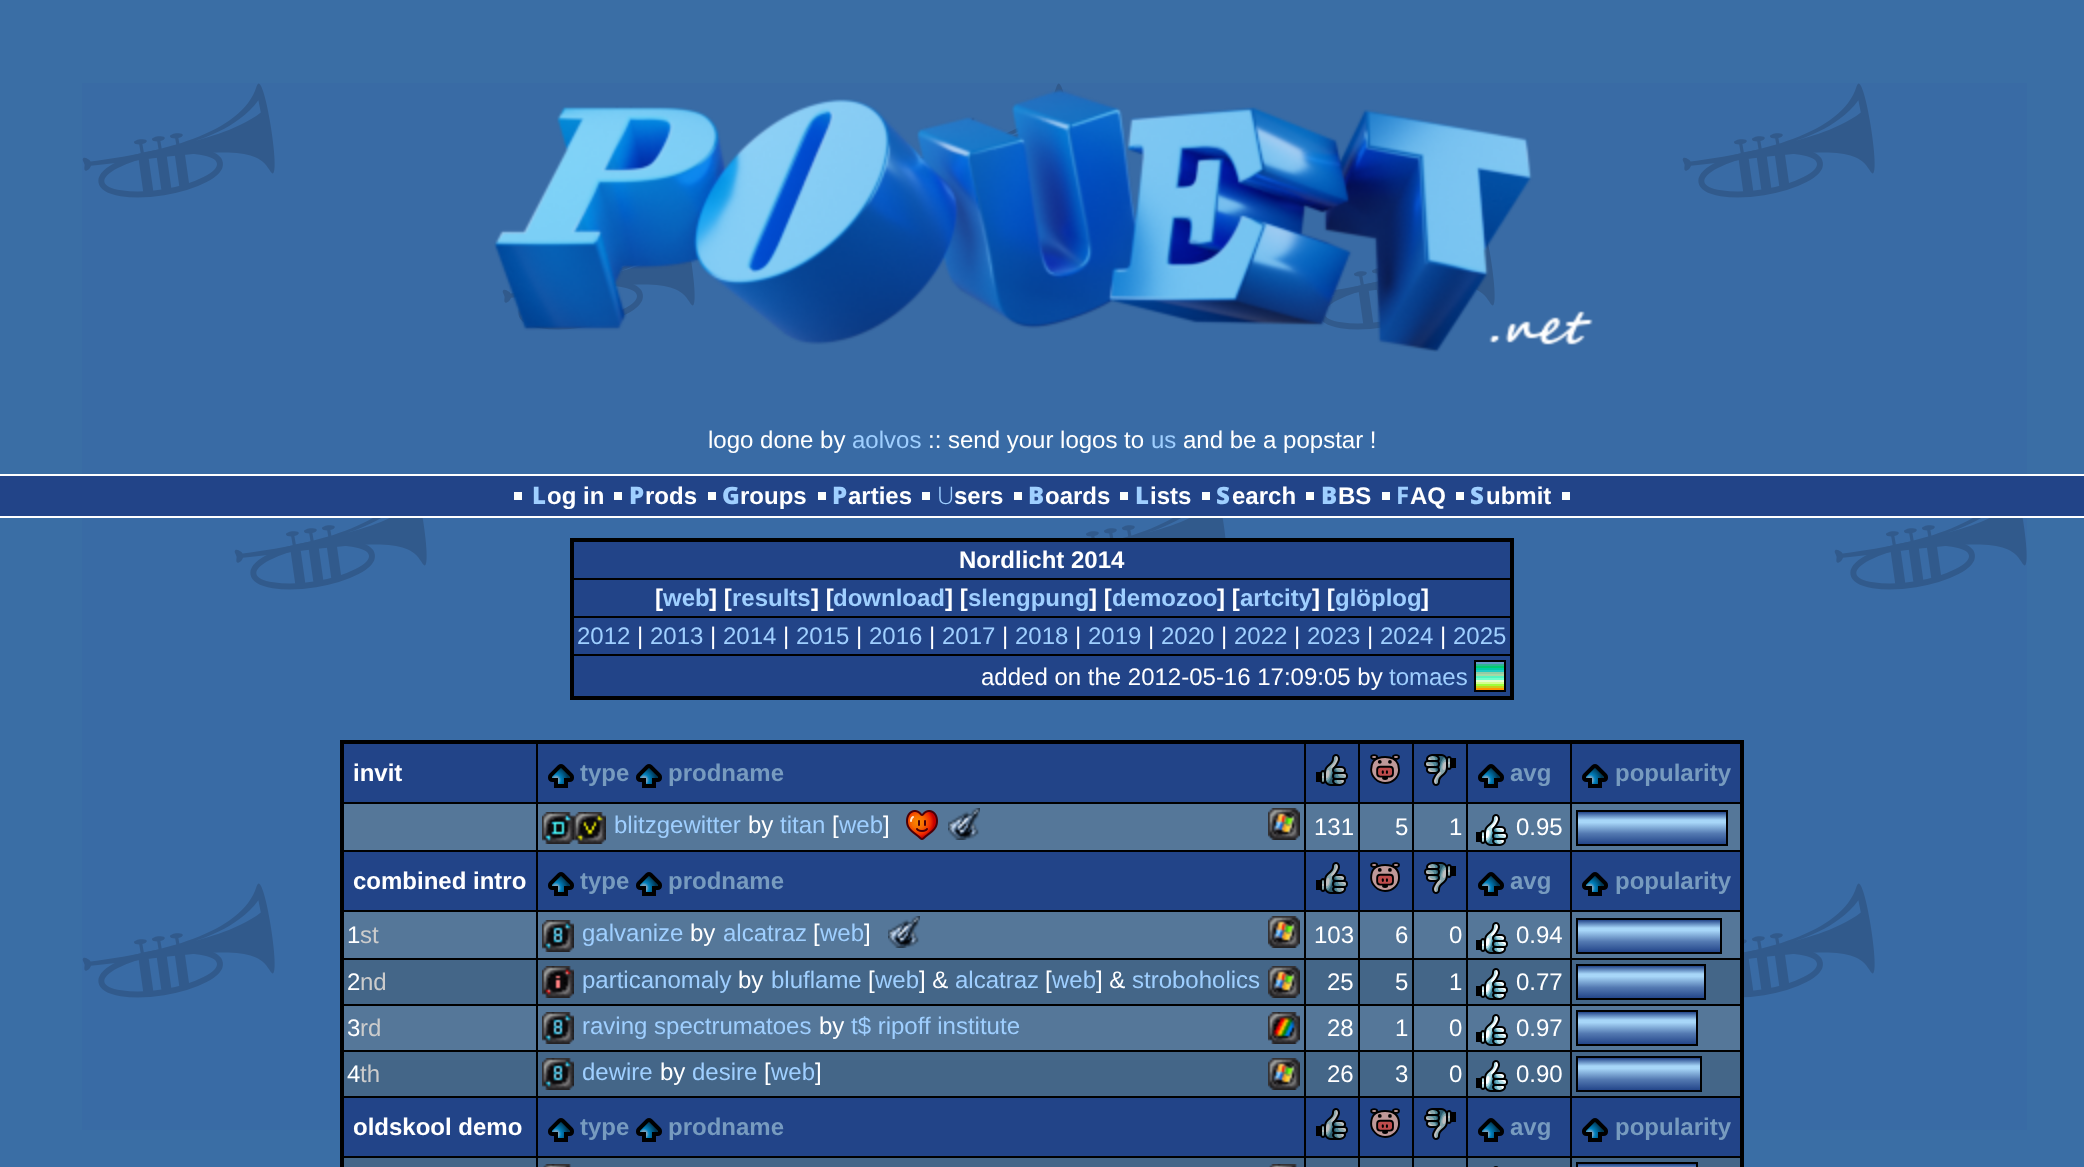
<svg xmlns="http://www.w3.org/2000/svg" width="2084" height="1167">
<style>
.a{font:24px Liberation Sans;fill:#fff}
.b{font:24px Liberation Sans;fill:#9fcfff}
.c{font:900 24px Noto Sans;fill:#9fcfff}
.d{font:bold 24px Liberation Sans;fill:#fff}
.e{font:300 24px Noto Sans;fill:#9fcfff}
.f{font:bold 24px Noto Sans;fill:#9fcfff}
.g{font:bold 24px Liberation Sans;fill:#9fcfff}
.h{font:bold 24px Liberation Sans;fill:#779bbf}
.i{font:24px Liberation Sans;fill:#ccc}
</style>
<defs>
<linearGradient id="g1" gradientUnits="userSpaceOnUse" x1="1652" y1="812" x2="1652" y2="844"><stop offset="0" stop-color="#24468a"/><stop offset="0.25" stop-color="#a7d6f8"/><stop offset="0.33" stop-color="#a7d6f8"/><stop offset="0.67" stop-color="#547ab2"/><stop offset="1" stop-color="#24468a"/></linearGradient>
<linearGradient id="g2" gradientUnits="userSpaceOnUse" x1="1649" y1="920" x2="1649" y2="952"><stop offset="0" stop-color="#24468a"/><stop offset="0.25" stop-color="#a7d6f8"/><stop offset="0.33" stop-color="#a7d6f8"/><stop offset="0.67" stop-color="#547ab2"/><stop offset="1" stop-color="#24468a"/></linearGradient>
<linearGradient id="g3" gradientUnits="userSpaceOnUse" x1="1641" y1="966" x2="1641" y2="998"><stop offset="0" stop-color="#24468a"/><stop offset="0.25" stop-color="#a7d6f8"/><stop offset="0.33" stop-color="#a7d6f8"/><stop offset="0.67" stop-color="#547ab2"/><stop offset="1" stop-color="#24468a"/></linearGradient>
<linearGradient id="g4" gradientUnits="userSpaceOnUse" x1="1637" y1="1012" x2="1637" y2="1044"><stop offset="0" stop-color="#24468a"/><stop offset="0.25" stop-color="#a7d6f8"/><stop offset="0.33" stop-color="#a7d6f8"/><stop offset="0.67" stop-color="#547ab2"/><stop offset="1" stop-color="#24468a"/></linearGradient>
<linearGradient id="g5" gradientUnits="userSpaceOnUse" x1="1639" y1="1058" x2="1639" y2="1090"><stop offset="0" stop-color="#24468a"/><stop offset="0.25" stop-color="#a7d6f8"/><stop offset="0.33" stop-color="#a7d6f8"/><stop offset="0.67" stop-color="#547ab2"/><stop offset="1" stop-color="#24468a"/></linearGradient>
<linearGradient id="g6" gradientUnits="userSpaceOnUse" x1="1637" y1="1164" x2="1637" y2="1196"><stop offset="0" stop-color="#24468a"/><stop offset="0.25" stop-color="#a7d6f8"/><stop offset="0.33" stop-color="#a7d6f8"/><stop offset="0.67" stop-color="#547ab2"/><stop offset="1" stop-color="#24468a"/></linearGradient>
</defs>
<rect width="100%" height="100%" fill="#3a6ea5"/>
<image href="1.png" x="82" y="83" width="1945" height="1047"/>
<image href="2.png" x="494" y="89" width="1099" height="263"/>
<path fill="#248" d="M0 476h2084v40H0z"/>
<path fill="#fff" d="M0 474h2084v2H0z"/>
<path fill="#fff" d="M0 516h2084v2H0z"/>
<image href="3.png" x="514" y="492" width="108" height="8"/>
<path fill="#fcfefc" d="M708 492h8v8H708z"/>
<path fill="#fcfefc" d="M818 492h8v8H818z"/>
<path fill="#fcfefc" d="M922 492h8v8H922z"/>
<path fill="#fcfefc" d="M1014 492h8v8H1014z"/>
<path fill="#fcfefc" d="M1120 492h8v8H1120z"/>
<path fill="#fcfefc" d="M1202 492h8v8H1202z"/>
<path fill="#fcfefc" d="M1306 492h8v8H1306z"/>
<path fill="#fcfefc" d="M1382 492h8v8H1382z"/>
<path fill="#fcfefc" d="M1456 492h8v8H1456z"/>
<path fill="#fcfefc" d="M1562 492h8v8H1562z"/>
<path fill="#000" d="M570 538h944v162H570z"/>
<path fill="#248" d="M574 542h936v36H574z"/>
<path fill="#248" d="M574 580h936v36H574z"/>
<path fill="#248" d="M574 618h936v36H574z"/>
<path fill="#248" d="M574 656h936v40H574z"/>
<image href="4.png" x="1474" y="660" width="32" height="32"/>
<path fill="#000" d="M340 740h1404v427H340z"/>
<path fill="#248" d="M344 744h192v58H344z"/>
<path fill="#248" d="M538 744h766v58H538z"/>
<image href="5.png" x="548" y="764" width="26" height="24"/>
<image href="5.png" x="636" y="764" width="26" height="24"/>
<path fill="#248" d="M1306 744h52v58H1306z"/>
<image href="6.png" x="1316" y="754" width="32" height="32"/>
<path fill="#248" d="M1360 744h52v58H1360z"/>
<image href="7.png" x="1370" y="754" width="30" height="30"/>
<path fill="#248" d="M1414 744h52v58H1414z"/>
<image href="8.png" x="1424" y="754" width="32" height="32"/>
<path fill="#248" d="M1468 744h102v58H1468z"/>
<image href="5.png" x="1478" y="764" width="26" height="24"/>
<path fill="#248" d="M1572 744h168v58H1572z"/>
<image href="5.png" x="1582" y="764" width="26" height="24"/>
<path fill="#579" d="M344 804h192v46H344z"/>
<path fill="#579" d="M538 804h766v46H538z"/>
<image href="9.png" x="542" y="812" width="32" height="32"/>
<image href="10.png" x="574" y="812" width="32" height="32"/>
<image href="11.png" x="906" y="810" width="32" height="30"/>
<image href="12.png" x="948" y="808" width="32" height="32"/>
<image href="13.png" x="1268" y="808" width="32" height="32"/>
<path fill="#579" d="M1306 804h52v46H1306z"/>
<path fill="#579" d="M1360 804h52v46H1360z"/>
<path fill="#579" d="M1414 804h52v46H1414z"/>
<path fill="#579" d="M1468 804h102v46H1468z"/>
<image href="14.png" x="1476" y="814" width="32" height="32"/>
<path fill="#579" d="M1572 804h168v46H1572z"/>
<path fill="url(#g1)" d="M1578 812h148v32H1578z"/>
<path fill="none" stroke="#000" stroke-width="2" d="M1577 811h150v34H1577z"/>
<path fill="#248" d="M344 852h192v58H344z"/>
<path fill="#248" d="M538 852h766v58H538z"/>
<image href="5.png" x="548" y="872" width="26" height="24"/>
<image href="5.png" x="636" y="872" width="26" height="24"/>
<path fill="#248" d="M1306 852h52v58H1306z"/>
<image href="6.png" x="1316" y="862" width="32" height="32"/>
<path fill="#248" d="M1360 852h52v58H1360z"/>
<image href="15.png" x="1370" y="862" width="30" height="30"/>
<path fill="#248" d="M1414 852h52v58H1414z"/>
<image href="8.png" x="1424" y="862" width="32" height="32"/>
<path fill="#248" d="M1468 852h102v58H1468z"/>
<image href="5.png" x="1478" y="872" width="26" height="24"/>
<path fill="#248" d="M1572 852h168v58H1572z"/>
<image href="5.png" x="1582" y="872" width="26" height="24"/>
<path fill="#579" d="M344 912h192v46H344z"/>
<path fill="#579" d="M538 912h766v46H538z"/>
<image href="16.png" x="542" y="920" width="32" height="32"/>
<image href="12.png" x="888" y="916" width="32" height="32"/>
<image href="13.png" x="1268" y="916" width="32" height="32"/>
<path fill="#579" d="M1306 912h52v46H1306z"/>
<path fill="#579" d="M1360 912h52v46H1360z"/>
<path fill="#579" d="M1414 912h52v46H1414z"/>
<path fill="#579" d="M1468 912h102v46H1468z"/>
<image href="14.png" x="1476" y="922" width="32" height="32"/>
<path fill="#579" d="M1572 912h168v46H1572z"/>
<path fill="url(#g2)" d="M1578 920h142v32H1578z"/>
<path fill="none" stroke="#000" stroke-width="2" d="M1577 919h144v34H1577z"/>
<path fill="#468" d="M344 960h192v44H344z"/>
<path fill="#468" d="M538 960h766v44H538z"/>
<image href="17.png" x="542" y="966" width="32" height="32"/>
<image href="18.png" x="1268" y="966" width="32" height="32"/>
<path fill="#468" d="M1306 960h52v44H1306z"/>
<path fill="#468" d="M1360 960h52v44H1360z"/>
<path fill="#468" d="M1414 960h52v44H1414z"/>
<path fill="#468" d="M1468 960h102v44H1468z"/>
<image href="19.png" x="1476" y="968" width="32" height="32"/>
<path fill="#468" d="M1572 960h168v44H1572z"/>
<path fill="url(#g3)" d="M1578 966h126v32H1578z"/>
<path fill="none" stroke="#000" stroke-width="2" d="M1577 965h128v34H1577z"/>
<path fill="#579" d="M344 1006h192v44H344z"/>
<path fill="#579" d="M538 1006h766v44H538z"/>
<image href="16.png" x="542" y="1012" width="32" height="32"/>
<image href="20.png" x="1268" y="1012" width="32" height="32"/>
<path fill="#579" d="M1306 1006h52v44H1306z"/>
<path fill="#579" d="M1360 1006h52v44H1360z"/>
<path fill="#579" d="M1414 1006h52v44H1414z"/>
<path fill="#579" d="M1468 1006h102v44H1468z"/>
<image href="14.png" x="1476" y="1014" width="32" height="32"/>
<path fill="#579" d="M1572 1006h168v44H1572z"/>
<path fill="url(#g4)" d="M1578 1012h118v32H1578z"/>
<path fill="none" stroke="#000" stroke-width="2" d="M1577 1011h120v34H1577z"/>
<path fill="#468" d="M344 1052h192v44H344z"/>
<path fill="#468" d="M538 1052h766v44H538z"/>
<image href="21.png" x="542" y="1058" width="32" height="32"/>
<image href="18.png" x="1268" y="1058" width="32" height="32"/>
<path fill="#468" d="M1306 1052h52v44H1306z"/>
<path fill="#468" d="M1360 1052h52v44H1360z"/>
<path fill="#468" d="M1414 1052h52v44H1414z"/>
<path fill="#468" d="M1468 1052h102v44H1468z"/>
<image href="19.png" x="1476" y="1060" width="32" height="32"/>
<path fill="#468" d="M1572 1052h168v44H1572z"/>
<path fill="url(#g5)" d="M1578 1058h122v32H1578z"/>
<path fill="none" stroke="#000" stroke-width="2" d="M1577 1057h124v34H1577z"/>
<path fill="#248" d="M344 1098h192v58H344z"/>
<path fill="#248" d="M538 1098h766v58H538z"/>
<image href="5.png" x="548" y="1118" width="26" height="24"/>
<image href="5.png" x="636" y="1118" width="26" height="24"/>
<path fill="#248" d="M1306 1098h52v58H1306z"/>
<image href="6.png" x="1316" y="1108" width="32" height="32"/>
<path fill="#248" d="M1360 1098h52v58H1360z"/>
<image href="15.png" x="1370" y="1108" width="30" height="30"/>
<path fill="#248" d="M1414 1098h52v58H1414z"/>
<image href="8.png" x="1424" y="1108" width="32" height="32"/>
<path fill="#248" d="M1468 1098h102v58H1468z"/>
<image href="5.png" x="1478" y="1118" width="26" height="24"/>
<path fill="#248" d="M1572 1098h168v58H1572z"/>
<image href="5.png" x="1582" y="1118" width="26" height="24"/>
<path fill="#468" d="M344 1158h192v9H344z"/>
<path fill="#468" d="M538 1158h766v9H538z"/>
<image href="22.png" x="543" y="1164" width="28" height="3"/>
<image href="22.png" x="1269" y="1164" width="28" height="3"/>
<path fill="#468" d="M1306 1158h52v9H1306z"/>
<path fill="#468" d="M1360 1158h52v9H1360z"/>
<path fill="#468" d="M1414 1158h52v9H1414z"/>
<path fill="#468" d="M1468 1158h102v9H1468z"/>
<image href="23.png" x="1493" y="1166" width="6" height="1"/>
<path fill="#468" d="M1572 1158h168v9H1572z"/>
<path fill="url(#g6)" d="M1576 1164h122v3H1576z"/>
<path fill="none" stroke="#000" stroke-width="2" d="M1577 1163h120v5H1577z"/>
<text class="a" x="708" y="448">logo done by</text>
<text class="b" x="852" y="448">aolvos</text>
<text class="a" x="928" y="448">:: send your logos to</text>
<text class="b" x="1151" y="448">us</text>
<text class="a" x="1183" y="448">and be a popstar !</text>
<text class="c" x="532" y="504">L</text>
<text class="d" x="547" y="504">og in</text>
<text class="c" x="629" y="504">P</text>
<text class="d" x="645" y="504">rods</text>
<text class="c" x="722" y="504">G</text>
<text class="d" x="740" y="504">roups</text>
<text class="c" x="832" y="504">P</text>
<text class="d" x="848" y="504">arties</text>
<text class="e" x="937" y="504">U</text>
<text class="d" x="954" y="504">sers</text>
<text class="c" x="1028" y="504">B</text>
<text class="d" x="1045" y="504">oards</text>
<text class="c" x="1135" y="504">L</text>
<text class="d" x="1150" y="504">ists</text>
<text class="c" x="1216" y="504">S</text>
<text class="d" x="1232" y="504">earch</text>
<text class="c" x="1321" y="504">B</text>
<text class="d" x="1338" y="504">BS</text>
<text class="f" x="1396" y="504">F</text>
<text class="d" x="1410" y="504">AQ</text>
<text class="c" x="1470" y="504">S</text>
<text class="d" x="1486" y="504">ubmit</text>
<text class="d" x="959" y="568">Nordlicht 2014</text>
<text class="d" x="655" y="606">[</text>
<text class="g" x="663" y="606">web</text>
<text class="d" x="709" y="606">] [</text>
<text class="g" x="732" y="606">results</text>
<text class="d" x="811" y="606">] [</text>
<text class="g" x="833" y="606">download</text>
<text class="d" x="945" y="606">] [</text>
<text class="g" x="968" y="606">slengpung</text>
<text class="d" x="1089" y="606">] [</text>
<text class="g" x="1112" y="606">demozoo</text>
<text class="d" x="1217" y="606">] [</text>
<text class="g" x="1240" y="606">artcity</text>
<text class="d" x="1312" y="606">] [</text>
<text class="g" x="1335" y="606">glöplog</text>
<text class="d" x="1421" y="606">]</text>
<text class="b" x="577" y="644">2012</text>
<text class="a" x="637" y="644">|</text>
<text class="b" x="650" y="644">2013</text>
<text class="a" x="710" y="644">|</text>
<text class="b" x="723" y="644">2014</text>
<text class="a" x="783" y="644">|</text>
<text class="b" x="796" y="644">2015</text>
<text class="a" x="856" y="644">|</text>
<text class="b" x="869" y="644">2016</text>
<text class="a" x="929" y="644">|</text>
<text class="b" x="942" y="644">2017</text>
<text class="a" x="1002" y="644">|</text>
<text class="b" x="1015" y="644">2018</text>
<text class="a" x="1075" y="644">|</text>
<text class="b" x="1088" y="644">2019</text>
<text class="a" x="1148" y="644">|</text>
<text class="b" x="1161" y="644">2020</text>
<text class="a" x="1221" y="644">|</text>
<text class="b" x="1234" y="644">2022</text>
<text class="a" x="1294" y="644">|</text>
<text class="b" x="1307" y="644">2023</text>
<text class="a" x="1367" y="644">|</text>
<text class="b" x="1380" y="644">2024</text>
<text class="a" x="1440" y="644">|</text>
<text class="b" x="1453" y="644">2025</text>
<text class="a" x="981" y="685">added on the 2012-05-16 17:09:05 by</text>
<text class="b" x="1389" y="685">tomaes</text>
<text class="d" x="353" y="781">invit</text>
<text class="h" x="580" y="781">type</text>
<text class="h" x="668" y="781">prodname</text>
<text class="h" x="1510" y="781">avg</text>
<text class="h" x="1615" y="781">popularity</text>
<text class="b" x="614" y="833">blitzgewitter</text>
<text class="a" x="748" y="833">by</text>
<text class="b" x="780" y="833">titan</text>
<text class="a" x="832" y="833">[</text>
<text class="b" x="839" y="833">web</text>
<text class="a" x="883" y="833">]</text>
<text class="a" x="1314" y="835">131</text>
<text class="a" x="1395" y="835">5</text>
<text class="a" x="1449" y="835">1</text>
<text class="a" x="1516" y="835">0.95</text>
<text class="d" x="353" y="889">combined intro</text>
<text class="h" x="580" y="889">type</text>
<text class="h" x="668" y="889">prodname</text>
<text class="h" x="1510" y="889">avg</text>
<text class="h" x="1615" y="889">popularity</text>
<text class="a" x="347" y="943">1</text>
<text class="i" x="360" y="943">st</text>
<text class="b" x="582" y="941">galvanize</text>
<text class="a" x="690" y="941">by</text>
<text class="b" x="723" y="941">alcatraz</text>
<text class="a" x="813" y="941">[</text>
<text class="b" x="820" y="941">web</text>
<text class="a" x="864" y="941">]</text>
<text class="a" x="1314" y="943">103</text>
<text class="a" x="1395" y="943">6</text>
<text class="a" x="1449" y="943">0</text>
<text class="a" x="1516" y="943">0.94</text>
<text class="a" x="347" y="990">2</text>
<text class="i" x="360" y="990">nd</text>
<text class="b" x="582" y="988">particanomaly</text>
<text class="a" x="738" y="988">by</text>
<text class="b" x="771" y="988">bluflame</text>
<text class="a" x="868" y="988">[</text>
<text class="b" x="875" y="988">web</text>
<text class="a" x="919" y="988">] &amp;</text>
<text class="b" x="955" y="988">alcatraz</text>
<text class="a" x="1045" y="988">[</text>
<text class="b" x="1052" y="988">web</text>
<text class="a" x="1096" y="988">] &amp;</text>
<text class="b" x="1132" y="988">stroboholics</text>
<text class="a" x="1327" y="990">25</text>
<text class="a" x="1395" y="990">5</text>
<text class="a" x="1449" y="990">1</text>
<text class="a" x="1516" y="990">0.77</text>
<text class="a" x="347" y="1036">3</text>
<text class="i" x="360" y="1036">rd</text>
<text class="b" x="582" y="1034">raving spectrumatoes</text>
<text class="a" x="819" y="1034">by</text>
<text class="b" x="851" y="1034">t$ ripoff institute</text>
<text class="a" x="1327" y="1036">28</text>
<text class="a" x="1395" y="1036">1</text>
<text class="a" x="1449" y="1036">0</text>
<text class="a" x="1516" y="1036">0.97</text>
<text class="a" x="347" y="1082">4</text>
<text class="i" x="360" y="1082">th</text>
<text class="b" x="582" y="1080">dewire</text>
<text class="a" x="660" y="1080">by</text>
<text class="b" x="692" y="1080">desire</text>
<text class="a" x="764" y="1080">[</text>
<text class="b" x="771" y="1080">web</text>
<text class="a" x="815" y="1080">]</text>
<text class="a" x="1327" y="1082">26</text>
<text class="a" x="1395" y="1082">3</text>
<text class="a" x="1449" y="1082">0</text>
<text class="a" x="1516" y="1082">0.90</text>
<text class="d" x="353" y="1135">oldskool demo</text>
<text class="h" x="580" y="1135">type</text>
<text class="h" x="668" y="1135">prodname</text>
<text class="h" x="1510" y="1135">avg</text>
<text class="h" x="1615" y="1135">popularity</text>
</svg>
